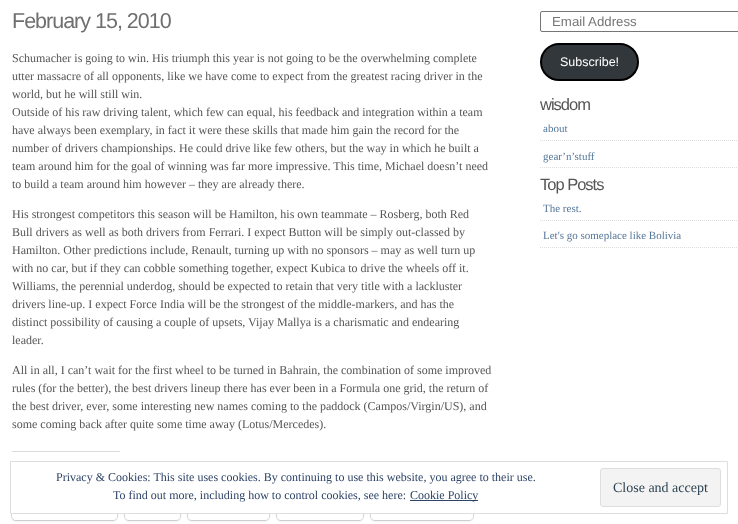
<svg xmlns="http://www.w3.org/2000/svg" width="738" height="524">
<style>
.a{font:21.5px Liberation Sans;letter-spacing:-1px;fill:#6f6f6f}
.b{font:12px Liberation Serif;fill:#555}
.c{font:13.25px Liberation Sans;fill:#757575}
.d{font:12.5px Liberation Sans;fill:#fff}
.e{font:16.5px Liberation Sans;letter-spacing:-1px;fill:#555}
.f{font:11px Liberation Serif;fill:#579}
.g{font:12px Liberation Serif;fill:#2e4467}
.h{font:14px Liberation Serif;fill:#2e4453}
</style>
<rect width="100%" height="100%" fill="#fff"/>
<path fill="#dcdcde" d="M12 451h108v1H12z"/>
<rect fill="none" stroke="#e0e0e0" x="11.5" y="489.5" width="106" height="31" rx="4.5"/>
<rect fill="#0000001f" filter="blur(1px)" x="12" y="491" width="105" height="30" rx="4"/>
<rect fill="#fff" x="12" y="490" width="105" height="30" rx="4"/>
<rect fill="none" stroke="#e0e0e0" x="124.5" y="489.5" width="56" height="31" rx="4.5"/>
<rect fill="#0000001f" filter="blur(1px)" x="125" y="491" width="55" height="30" rx="4"/>
<rect fill="#fff" x="125" y="490" width="55" height="30" rx="4"/>
<rect fill="none" stroke="#e0e0e0" x="187.5" y="489.5" width="82" height="31" rx="4.5"/>
<rect fill="#0000001f" filter="blur(1px)" x="188" y="491" width="81" height="30" rx="4"/>
<rect fill="#fff" x="188" y="490" width="81" height="30" rx="4"/>
<rect fill="none" stroke="#e0e0e0" x="276.5" y="489.5" width="87" height="31" rx="4.5"/>
<rect fill="#0000001f" filter="blur(1px)" x="277" y="491" width="86" height="30" rx="4"/>
<rect fill="#fff" x="277" y="490" width="86" height="30" rx="4"/>
<rect fill="none" stroke="#e0e0e0" x="370.5" y="489.5" width="103" height="31" rx="4.5"/>
<rect fill="#0000001f" filter="blur(1px)" x="371" y="491" width="102" height="30" rx="4"/>
<rect fill="#fff" x="371" y="490" width="102" height="30" rx="4"/>
<rect fill="none" stroke="#767676" x="540.5" y="11.5" width="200" height="20" rx="1.5"/>
<rect fill="#32373c" stroke="#000" stroke-width="2" x="541" y="44" width="97" height="36" rx="18"/>
<path fill="none" stroke="#ddd" stroke-dasharray="1 1" d="M540 140.5h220"/>
<path fill="none" stroke="#ddd" stroke-dasharray="1 1" d="M540 167.5h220"/>
<path fill="none" stroke="#ddd" stroke-dasharray="1 1" d="M540 220.5h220"/>
<path fill="none" stroke="#ddd" stroke-dasharray="1 1" d="M540 247.5h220"/>
<path fill="#fff" d="M11 489h463v24H11z"/>
<path fill="none" stroke="#dedede" d="M10.5 461.5h717v52H10.5z"/>
<path fill="#2e4467" d="M410 500h68v1H410z"/>
<rect fill="#f3f3f3" stroke="#dedede" x="600.5" y="468.5" width="120" height="38" rx="2.5"/>
<text class="a" x="12" y="28">February 15, 2010</text>
<text class="b" x="12" y="62">Schumacher is going to win. His triumph this year is not going to be the overwhelming complete</text>
<text class="b" x="12" y="80">utter massacre of all opponents, like we have come to expect from the greatest racing driver in the</text>
<text class="b" x="12" y="98">world, but he will still win.</text>
<text class="b" x="12" y="116">Outside of his raw driving talent, which few can equal, his feedback and integration within a team</text>
<text class="b" x="12" y="134">have always been exemplary, in fact it were these skills that made him gain the record for the</text>
<text class="b" x="12" y="152">number of drivers championships. He could drive like few others, but the way in which he built a</text>
<text class="b" x="12" y="170">team around him for the goal of winning was far more impressive. This time, Michael doesn’t need</text>
<text class="b" x="12" y="188">to build a team around him however – they are already there.</text>
<text class="b" x="12" y="218">His strongest competitors this season will be Hamilton, his own teammate – Rosberg, both Red</text>
<text class="b" x="12" y="236">Bull drivers as well as both drivers from Ferrari. I expect Button will be simply out-classed by</text>
<text class="b" x="12" y="254">Hamilton. Other predictions include, Renault, turning up with no sponsors – may as well turn up</text>
<text class="b" x="12" y="272">with no car, but if they can cobble something together, expect Kubica to drive the wheels off it.</text>
<text class="b" x="12" y="290">Williams, the perennial underdog, should be expected to retain that very title with a lackluster</text>
<text class="b" x="12" y="308">drivers line-up. I expect Force India will be the strongest of the middle-markers, and has the</text>
<text class="b" x="12" y="326">distinct possibility of causing a couple of upsets, Vijay Mallya is a charismatic and endearing</text>
<text class="b" x="12" y="344">leader.</text>
<text class="b" x="12" y="374">All in all, I can’t wait for the first wheel to be turned in Bahrain, the combination of some improved</text>
<text class="b" x="12" y="392">rules (for the better), the best drivers lineup there has ever been in a Formula one grid, the return of</text>
<text class="b" x="12" y="410">the best driver, ever, some interesting new names coming to the paddock (Campos/Virgin/US), and</text>
<text class="b" x="12" y="428">some coming back after quite some time away (Lotus/Mercedes).</text>
<text class="c" x="552" y="26">Email Address</text>
<text class="d" x="560" y="66">Subscribe!</text>
<text class="e" x="540" y="110">wisdom</text>
<text class="f" x="543" y="132">about</text>
<text class="f" x="543" y="160">gear’n’stuff</text>
<text class="e" x="540" y="190">Top Posts</text>
<text class="f" x="543" y="212">The rest.</text>
<text class="f" x="543" y="239">Let's go someplace like Bolivia</text>
<text class="g" x="56" y="481">Privacy &amp; Cookies: This site uses cookies. By continuing to use this website, you agree to their use.</text>
<text class="g" x="113" y="499">To find out more, including how to control cookies, see here:</text>
<text class="g" x="410" y="499">Cookie Policy</text>
<text class="h" x="613" y="492">Close and accept</text>
</svg>
